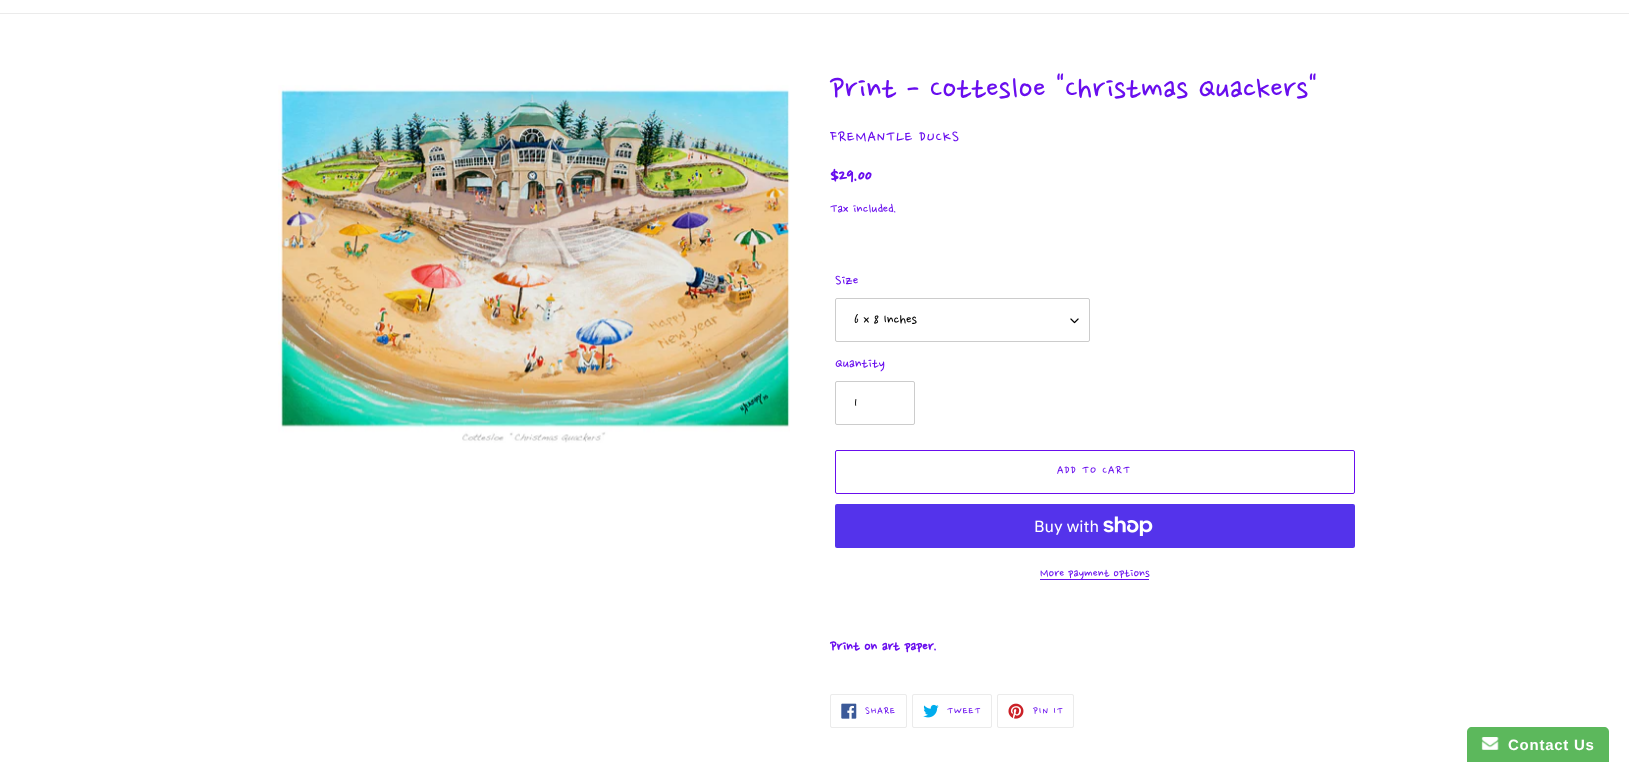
<svg xmlns="http://www.w3.org/2000/svg" width="1629" height="762">
<style>
.a{font:36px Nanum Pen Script;fill:#690eee}
.b{font:18px Nanum Pen Script;letter-spacing:1px;fill:#690eee}
.c{font:bold 20px Nanum Pen Script;fill:#690eee}
.d{font:15px Nanum Pen Script;fill:#690eee}
.e{font:16px Nanum Pen Script;fill:#690eee}
.f{font:16px Nanum Pen Script;fill:#000}
.g{font:14px Nanum Pen Script;letter-spacing:1.1px;fill:#690eee}
.h{font:16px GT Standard;fill:#fff}
.i{font:14px Nanum Pen Script;fill:#690eee}
.j{font:bold 16px Nanum Pen Script;fill:#690eee}
.k{font:12px Nanum Pen Script;letter-spacing:1px;fill:#690eee}
.l{font:bold 15px Liberation Sans;letter-spacing:0.75px;fill:#fff}
</style>
<rect width="100%" height="100%" fill="#fff"/>
<path fill="#ebebeb" d="M0 13h1629v1H0z"/>
<image href="1.png" x="278" y="85" width="512" height="358"/>
<image href="2.png" x="1070" y="318" width="9" height="6"/>
<rect fill="none" stroke="#ccc" x="835.5" y="298.5" width="254" height="43" rx="1.5"/>
<rect fill="none" stroke="#ccc" x="835.5" y="381.5" width="79" height="43" rx="1.5"/>
<rect fill="none" stroke="#690eee" x="835.5" y="450.5" width="519" height="43" rx="1.5"/>
<rect fill="#5433eb" x="835" y="504" width="520" height="44" rx="2"/>
<image href="3.png" x="1103" y="516" width="50" height="20"/>
<path fill="#690eee" d="M1040 579h109v1H1040z"/>
<rect fill="none" stroke="#ebebeb" x="830.5" y="694.5" width="76" height="33" rx="1.5"/>
<image href="4.png" x="841" y="703" width="16" height="16"/>
<rect fill="none" stroke="#ebebeb" x="912.5" y="694.5" width="79" height="33" rx="1.5"/>
<image href="5.png" x="923" y="704" width="16" height="14"/>
<rect fill="none" stroke="#ebebeb" x="997.5" y="694.5" width="76" height="33" rx="1.5"/>
<image href="6.png" x="1008" y="703" width="16" height="16"/>
<path fill="#5cb85c" d="M1472 727h132c3 0 5 2 5 5v30h-142v-30c0-3 2-5 5-5z"/>
<image href="7.png" x="1481" y="737" width="18" height="13"/>
<text class="a" x="830" y="101">Print - Cottesloe "Christmas Quackers"</text>
<text class="b" x="830" y="143">FREMANTLE DUCKS</text>
<text class="c" x="830" y="183">$29.00</text>
<text class="d" x="830" y="214">Tax included.</text>
<text class="e" x="835" y="286">Size</text>
<text class="f" x="854" y="325">6 x 8 Inches</text>
<text class="e" x="835" y="369">Quantity</text>
<text class="f" x="854" y="408">1</text>
<text class="g" x="1057" y="475">ADD TO CART</text>
<text class="h" x="1034" y="532">Buy with</text>
<text class="i" x="1040" y="578">More payment options</text>
<text class="j" x="830" y="652">Print on art paper.</text>
<text class="k" x="865" y="715">SHARE</text>
<text class="k" x="947" y="715">TWEET</text>
<text class="k" x="1033" y="715">PIN IT</text>
<text class="l" x="1508" y="750">Contact Us</text>
</svg>
